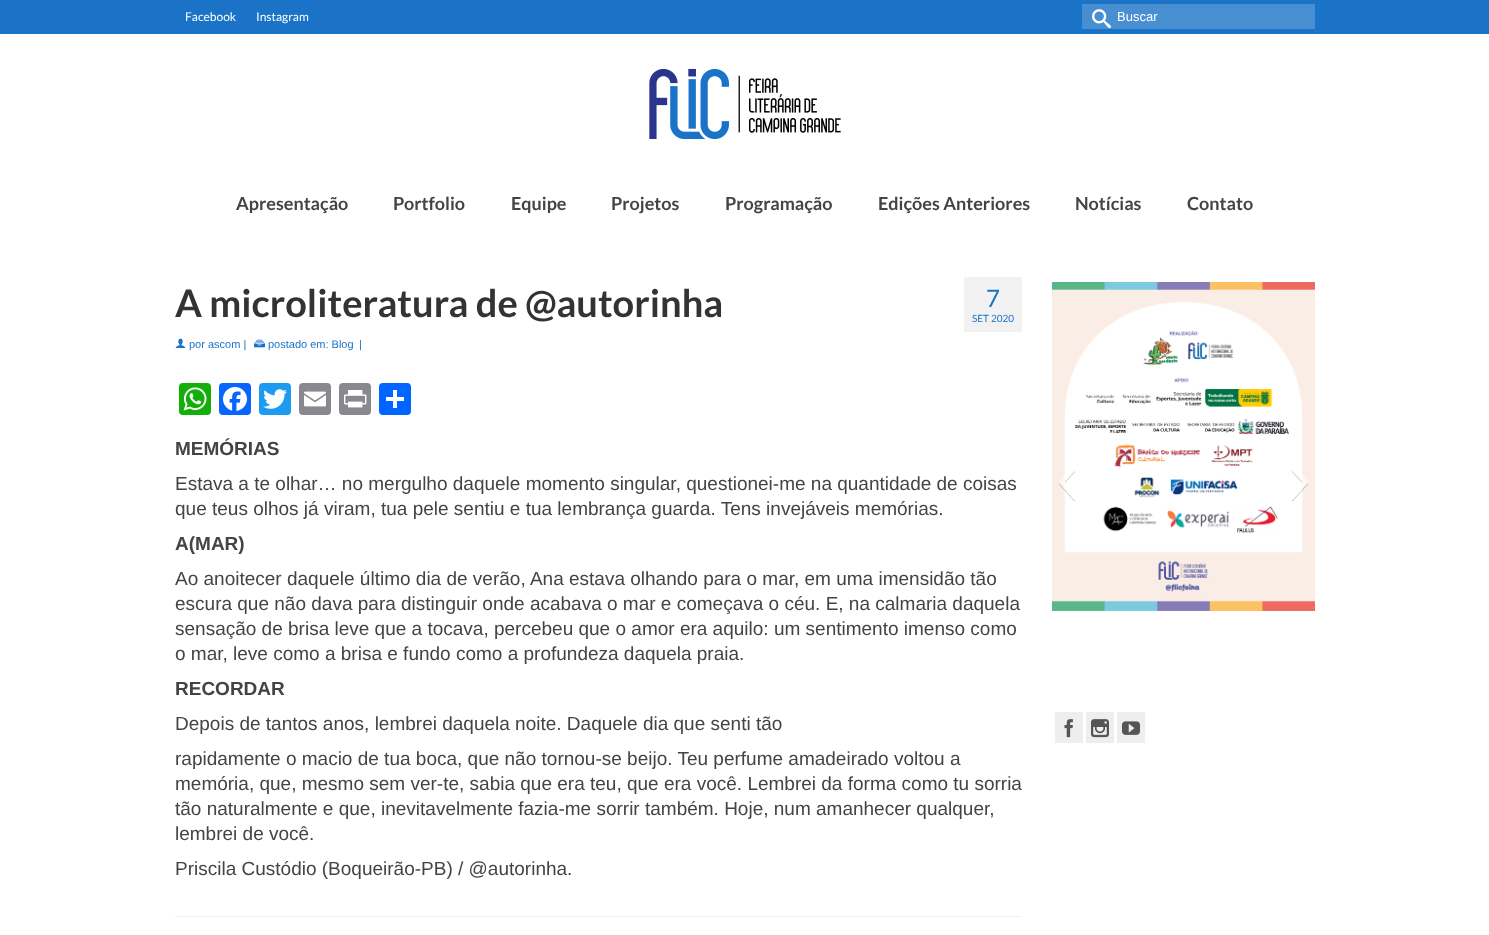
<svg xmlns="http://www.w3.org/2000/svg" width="1489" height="935">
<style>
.a{font:12px Lato;fill:#fff}
.b{font:13px Liberation Sans;fill:#fff}
.c{font:bold 18px Lato;fill:#444}
.d{font:bold 38px Lato;fill:#333}
.e{font:11px Liberation Sans;fill:#1a73c7}
.f{font:24px Lato;fill:#1a73c7}
.g{font:10px Lato;fill:#1a73c7}
.h{font:bold 19px Liberation Sans;fill:#444}
.i{font:19px Liberation Sans;fill:#444}
</style>
<rect width="100%" height="100%" fill="#fff"/>
<path fill="#1a73c7" d="M0 0h1489v34H0z"/>
<path fill="#488fd2" d="M1082 4h233v25H1082z"/>
<image href="1.png" x="1092" y="9" width="19" height="20"/>
<image href="2.png" x="649" y="68" width="192" height="72"/>
<image href="3.png" x="175" y="338" width="11" height="10"/>
<image href="4.png" x="254" y="339" width="11" height="9"/>
<path fill="#f2f2f2" d="M964 277h58v55H964z"/>
<rect fill="#12af0a" x="179" y="383" width="32" height="32" rx="4"/>
<image href="5.png" x="183" y="387" width="24" height="24"/>
<rect fill="#0866ff" x="219" y="383" width="32" height="32" rx="4"/>
<image href="6.png" x="223" y="387" width="24" height="24"/>
<rect fill="#1d9bf0" x="259" y="383" width="32" height="32" rx="4"/>
<image href="7.png" x="263" y="389" width="24" height="20"/>
<rect fill="#888990" x="299" y="383" width="32" height="32" rx="4"/>
<image href="8.png" x="304" y="391" width="22" height="16"/>
<rect fill="#888990" x="339" y="383" width="32" height="32" rx="4"/>
<image href="9.png" x="344" y="390" width="23" height="18"/>
<rect fill="#0166ff" x="379" y="383" width="32" height="32" rx="4"/>
<path fill="#fff" d="M393 390h4v18H393z"/>
<path fill="#fff" d="M386 397h18v4H386z"/>
<path fill="#f2f2f2" d="M175 916h847v1H175z"/>
<image href="10.png" x="1052" y="282" width="263" height="329"/>
<image href="11.png" x="1059" y="471" width="16" height="30"/>
<image href="12.png" x="1292" y="471" width="16" height="30"/>
<path fill="#eee" d="M1055 712h28v31H1055z"/>
<image href="13.png" x="1064" y="719" width="9" height="19"/>
<path fill="#eee" d="M1086 712h28v31H1086z"/>
<image href="14.png" x="1091" y="719" width="18" height="19"/>
<path fill="#eee" d="M1117 712h28v31H1117z"/>
<image href="15.png" x="1122" y="721" width="18" height="14"/>
<text class="a" x="185" y="21">Facebook</text>
<text class="a" x="256" y="21">Instagram</text>
<text class="b" x="1117" y="21">Buscar</text>
<text class="c" x="236" y="210">Apresentação</text>
<text class="c" x="393" y="210">Portfolio</text>
<text class="c" x="511" y="210">Equipe</text>
<text class="c" x="611" y="210">Projetos</text>
<text class="c" x="725" y="210">Programação</text>
<text class="c" x="878" y="210">Edições Anteriores</text>
<text class="c" x="1075" y="210">Notícias</text>
<text class="c" x="1187" y="210">Contato</text>
<text class="d" x="175" y="317">A microliteratura de @autorinha</text>
<text class="e" x="189" y="348">por ascom |</text>
<text class="e" x="268" y="348">postado em: Blog</text>
<text class="e" x="359" y="348">|</text>
<text class="f" x="986" y="307">7</text>
<text class="g" x="972" y="322">SET 2020</text>
<text class="h" x="175" y="455">MEMÓRIAS</text>
<text class="i" x="175" y="490">Estava a te olhar… no mergulho daquele momento singular, questionei-me na quantidade de coisas</text>
<text class="i" x="175" y="515">que teus olhos já viram, tua pele sentiu e tua lembrança guarda. Tens invejáveis memórias.</text>
<text class="h" x="175" y="550">A(MAR)</text>
<text class="i" x="175" y="585">Ao anoitecer daquele último dia de verão, Ana estava olhando para o mar, em uma imensidão tão</text>
<text class="i" x="175" y="610">escura que não dava para distinguir onde acabava o mar e começava o céu. E, na calmaria daquela</text>
<text class="i" x="175" y="635">sensação de brisa leve que a tocava, percebeu que o amor era aquilo: um sentimento imenso como</text>
<text class="i" x="175" y="660">o mar, leve como a brisa e fundo como a profundeza daquela praia.</text>
<text class="h" x="175" y="695">RECORDAR</text>
<text class="i" x="175" y="730">Depois de tantos anos, lembrei daquela noite. Daquele dia que senti tão</text>
<text class="i" x="175" y="765">rapidamente o macio de tua boca, que não tornou-se beijo. Teu perfume amadeirado voltou a</text>
<text class="i" x="175" y="790">memória, que, mesmo sem ver-te, sabia que era teu, que era você. Lembrei da forma como tu sorria</text>
<text class="i" x="175" y="815">tão naturalmente e que, inevitavelmente fazia-me sorrir também. Hoje, num amanhecer qualquer,</text>
<text class="i" x="175" y="840">lembrei de você.</text>
<text class="i" x="175" y="875">Priscila Custódio (Boqueirão-PB) / @autorinha.</text>
</svg>
